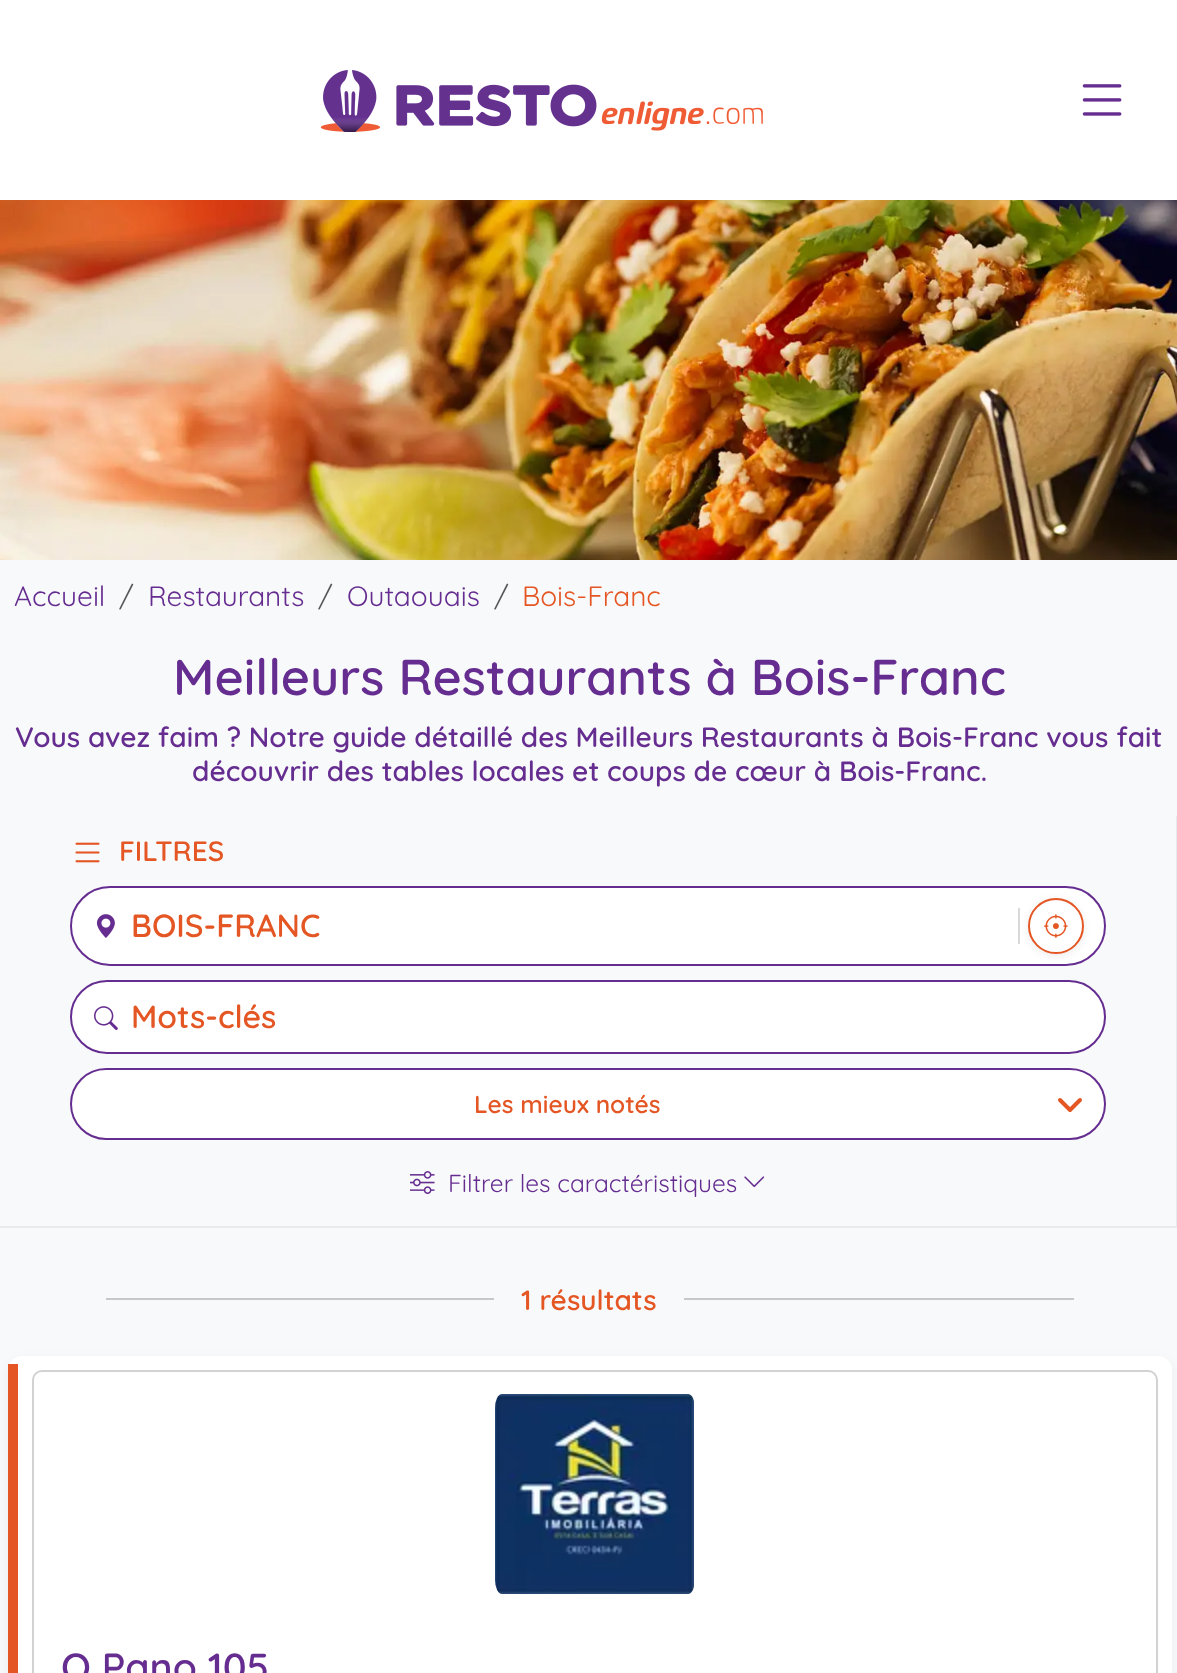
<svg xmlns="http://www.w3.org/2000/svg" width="1177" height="1673">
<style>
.a{font:28px Quicksand;fill:#662d91}
.b{font:28px Quicksand;fill:#575a5d}
.c{font:28px Quicksand;fill:#e45623}
.d{font:600 50.4px Quicksand;fill:#662d91}
.e{font:600 28px Quicksand;fill:#662d91}
.f{font:600 28px Quicksand;fill:#e45623}
.g{font:600 32px Quicksand;fill:#e45623}
.h{font:600 24.5px Quicksand;fill:#e45623}
.i{font:24.5px Quicksand;fill:#662d91}
.j{font:600 39.25px Quicksand;fill:#662d91}
</style>
<rect width="100%" height="100%" fill="#f8f9fa"/>
<path fill="#fff" d="M0 0h1177v200H0z"/>
<image href="1.png" x="320" y="70" width="443" height="62"/>
<image href="2.png" x="1082" y="84" width="40" height="32"/>
<image href="3.png" x="0" y="200" width="1177" height="360"/>
<path fill="#e9eaeb" d="M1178 816v412l-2-2v-410z"/>
<path fill="#0000000f" d="M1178 1228h-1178v-2h1176z"/>
<image href="4.png" x="75" y="842" width="25" height="21"/>
<rect fill="#fff" stroke="#662d91" stroke-width="2" x="71" y="887" width="1034" height="78" rx="39"/>
<image href="5.png" x="96" y="914" width="19" height="24"/>
<rect fill="#00000014" filter="blur(4px)" x="1028" y="900" width="56" height="56" rx="28"/>
<circle fill="#fff" stroke="#e45623" stroke-width="2" cx="1056" cy="926" r="27"/>
<path fill="#d9d9d9" d="M1018 908h2v36H1018z"/>
<image href="6.png" x="1044" y="914" width="24" height="24"/>
<rect fill="#fff" stroke="#662d91" stroke-width="2" x="71" y="981" width="1034" height="72" rx="36"/>
<image href="7.png" x="94" y="1006" width="24" height="24"/>
<rect fill="#fff" x="70" y="1068" width="1036" height="72" rx="36"/>
<path fill="none" stroke="#e45623" stroke-width="4" stroke-linecap="round" stroke-linejoin="round" d="M1060 1100l10 10l10-10"/>
<rect fill="none" stroke="#662d91" stroke-width="2" x="71" y="1069" width="1034" height="70" rx="35"/>
<image href="8.png" x="410" y="1171" width="25" height="23"/>
<image href="9.png" x="744" y="1176" width="21" height="12"/>
<path fill="#c7c8c8" d="M106 1298h388v2H106z"/>
<path fill="#c7c8c8" d="M684 1298h390v2H684z"/>
<rect fill="#0000000d" filter="blur(6px)" x="8" y="1360" width="1164" height="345" rx="14"/>
<rect fill="#fff" x="8" y="1356" width="1164" height="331" rx="14"/>
<path fill="#e45623" d="M8 1364h10v309H8z"/>
<rect fill="none" stroke="#d2d2d2" stroke-width="2" x="33" y="1371" width="1124" height="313" rx="9"/>
<image href="10.png" x="495" y="1394" width="199" height="200"/>
<text class="a" x="14" y="606">Accueil</text>
<text class="b" x="119" y="606">/</text>
<text class="a" x="148" y="606">Restaurants</text>
<text class="b" x="318" y="606">/</text>
<text class="a" x="347" y="606">Outaouais</text>
<text class="b" x="494" y="606">/</text>
<text class="c" x="522" y="606">Bois-Franc</text>
<text class="d" x="173" y="695">Meilleurs Restaurants à Bois-Franc</text>
<text class="e" x="15" y="747">Vous avez faim ? Notre guide détaillé des Meilleurs Restaurants à Bois-Franc vous fait</text>
<text class="e" x="192" y="781">découvrir des tables locales et coups de cœur à Bois-Franc.</text>
<text class="f" x="119" y="861">FILTRES</text>
<text class="g" x="131" y="937">BOIS-FRANC</text>
<text class="g" x="131" y="1028">Mots-clés</text>
<text class="h" x="474" y="1113">Les mieux notés</text>
<text class="i" x="448" y="1192">Filtrer les caractéristiques</text>
<text class="f" x="521" y="1310">1 résultats</text>
<text class="j" x="61" y="1681">O Pano 105</text>
</svg>
